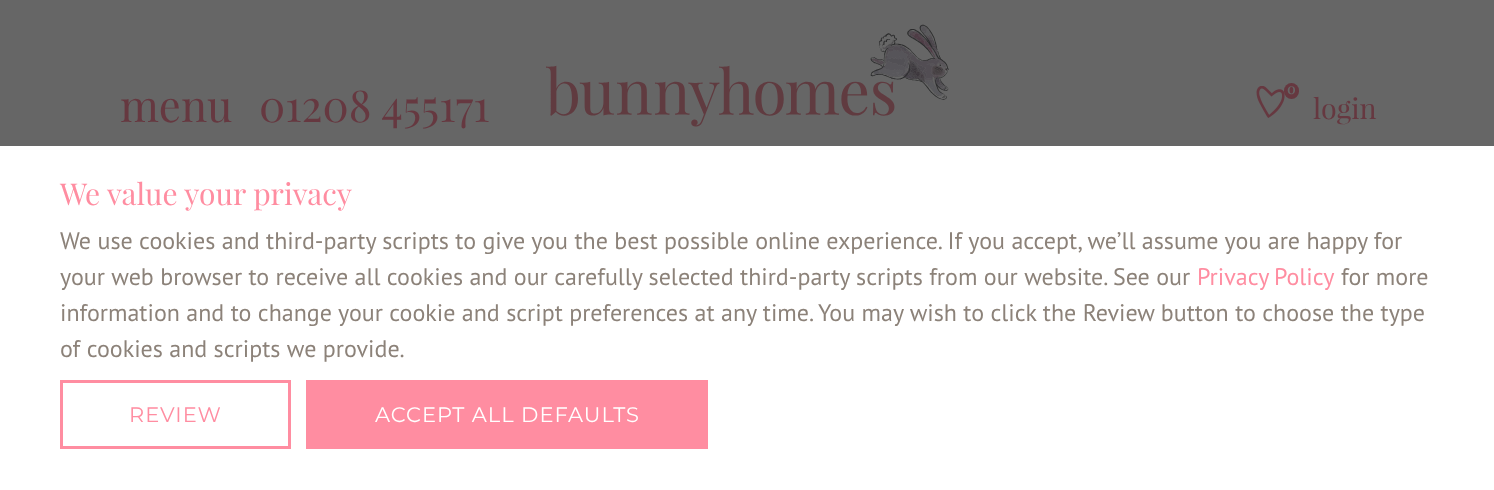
<svg xmlns="http://www.w3.org/2000/svg" width="1494" height="490">
<style>
.a{font:43.75px Playfair Display;fill:#663840}
.b{font:bold 14px Playfair Display;fill:#666}
.c{font:28.5px Playfair Display;fill:#663840}
.d{font:30px Playfair Display;fill:#ff8da1}
.e{font:24px PT Sans;fill:#8c8279}
.f{font:24px PT Sans;fill:#ff8da1}
.g{font:21px Montserrat;letter-spacing:1px;fill:#ff8da1}
.h{font:21px Montserrat;letter-spacing:1px;fill:#fff}
</style>
<rect width="100%" height="100%" fill="#666"/>
<image href="1.png" x="546" y="24" width="403" height="103"/>
<image href="2.png" x="1256" y="86" width="29" height="32"/>
<rect fill="#663840" x="1284" y="83" width="15" height="16" rx="7.5"/>
<path fill="#fff" d="M0 146h1494v344H0z"/>
<path fill="none" stroke="#ff8da1" stroke-width="3" d="M61.5 381.5h228v66H61.5z"/>
<path fill="#ff8da1" d="M306 380h402v69H306z"/>
<text class="a" x="120" y="122">menu</text>
<text class="a" x="259" y="122">01208 455171</text>
<text class="b" x="1287" y="94">0</text>
<text class="c" x="1313" y="119">login</text>
<text class="d" x="60" y="205">We value your privacy</text>
<text class="e" x="60" y="249">We use cookies and third-party scripts to give you the best possible online experience. If you accept, we’ll assume you are happy for</text>
<text class="e" x="60" y="285">your web browser to receive all cookies and our carefully selected third-party scripts from our website. See our</text>
<text class="f" x="1197" y="285" word-spacing="-1">Privacy Policy</text>
<text class="e" x="1341" y="285">for more</text>
<text class="e" x="60" y="321">information and to change your cookie and script preferences at any time. You may wish to click the Review button to choose the type</text>
<text class="e" x="60" y="357">of cookies and scripts we provide.</text>
<text class="g" x="129" y="422">REVIEW</text>
<text class="h" x="375" y="422">ACCEPT ALL DEFAULTS</text>
</svg>
